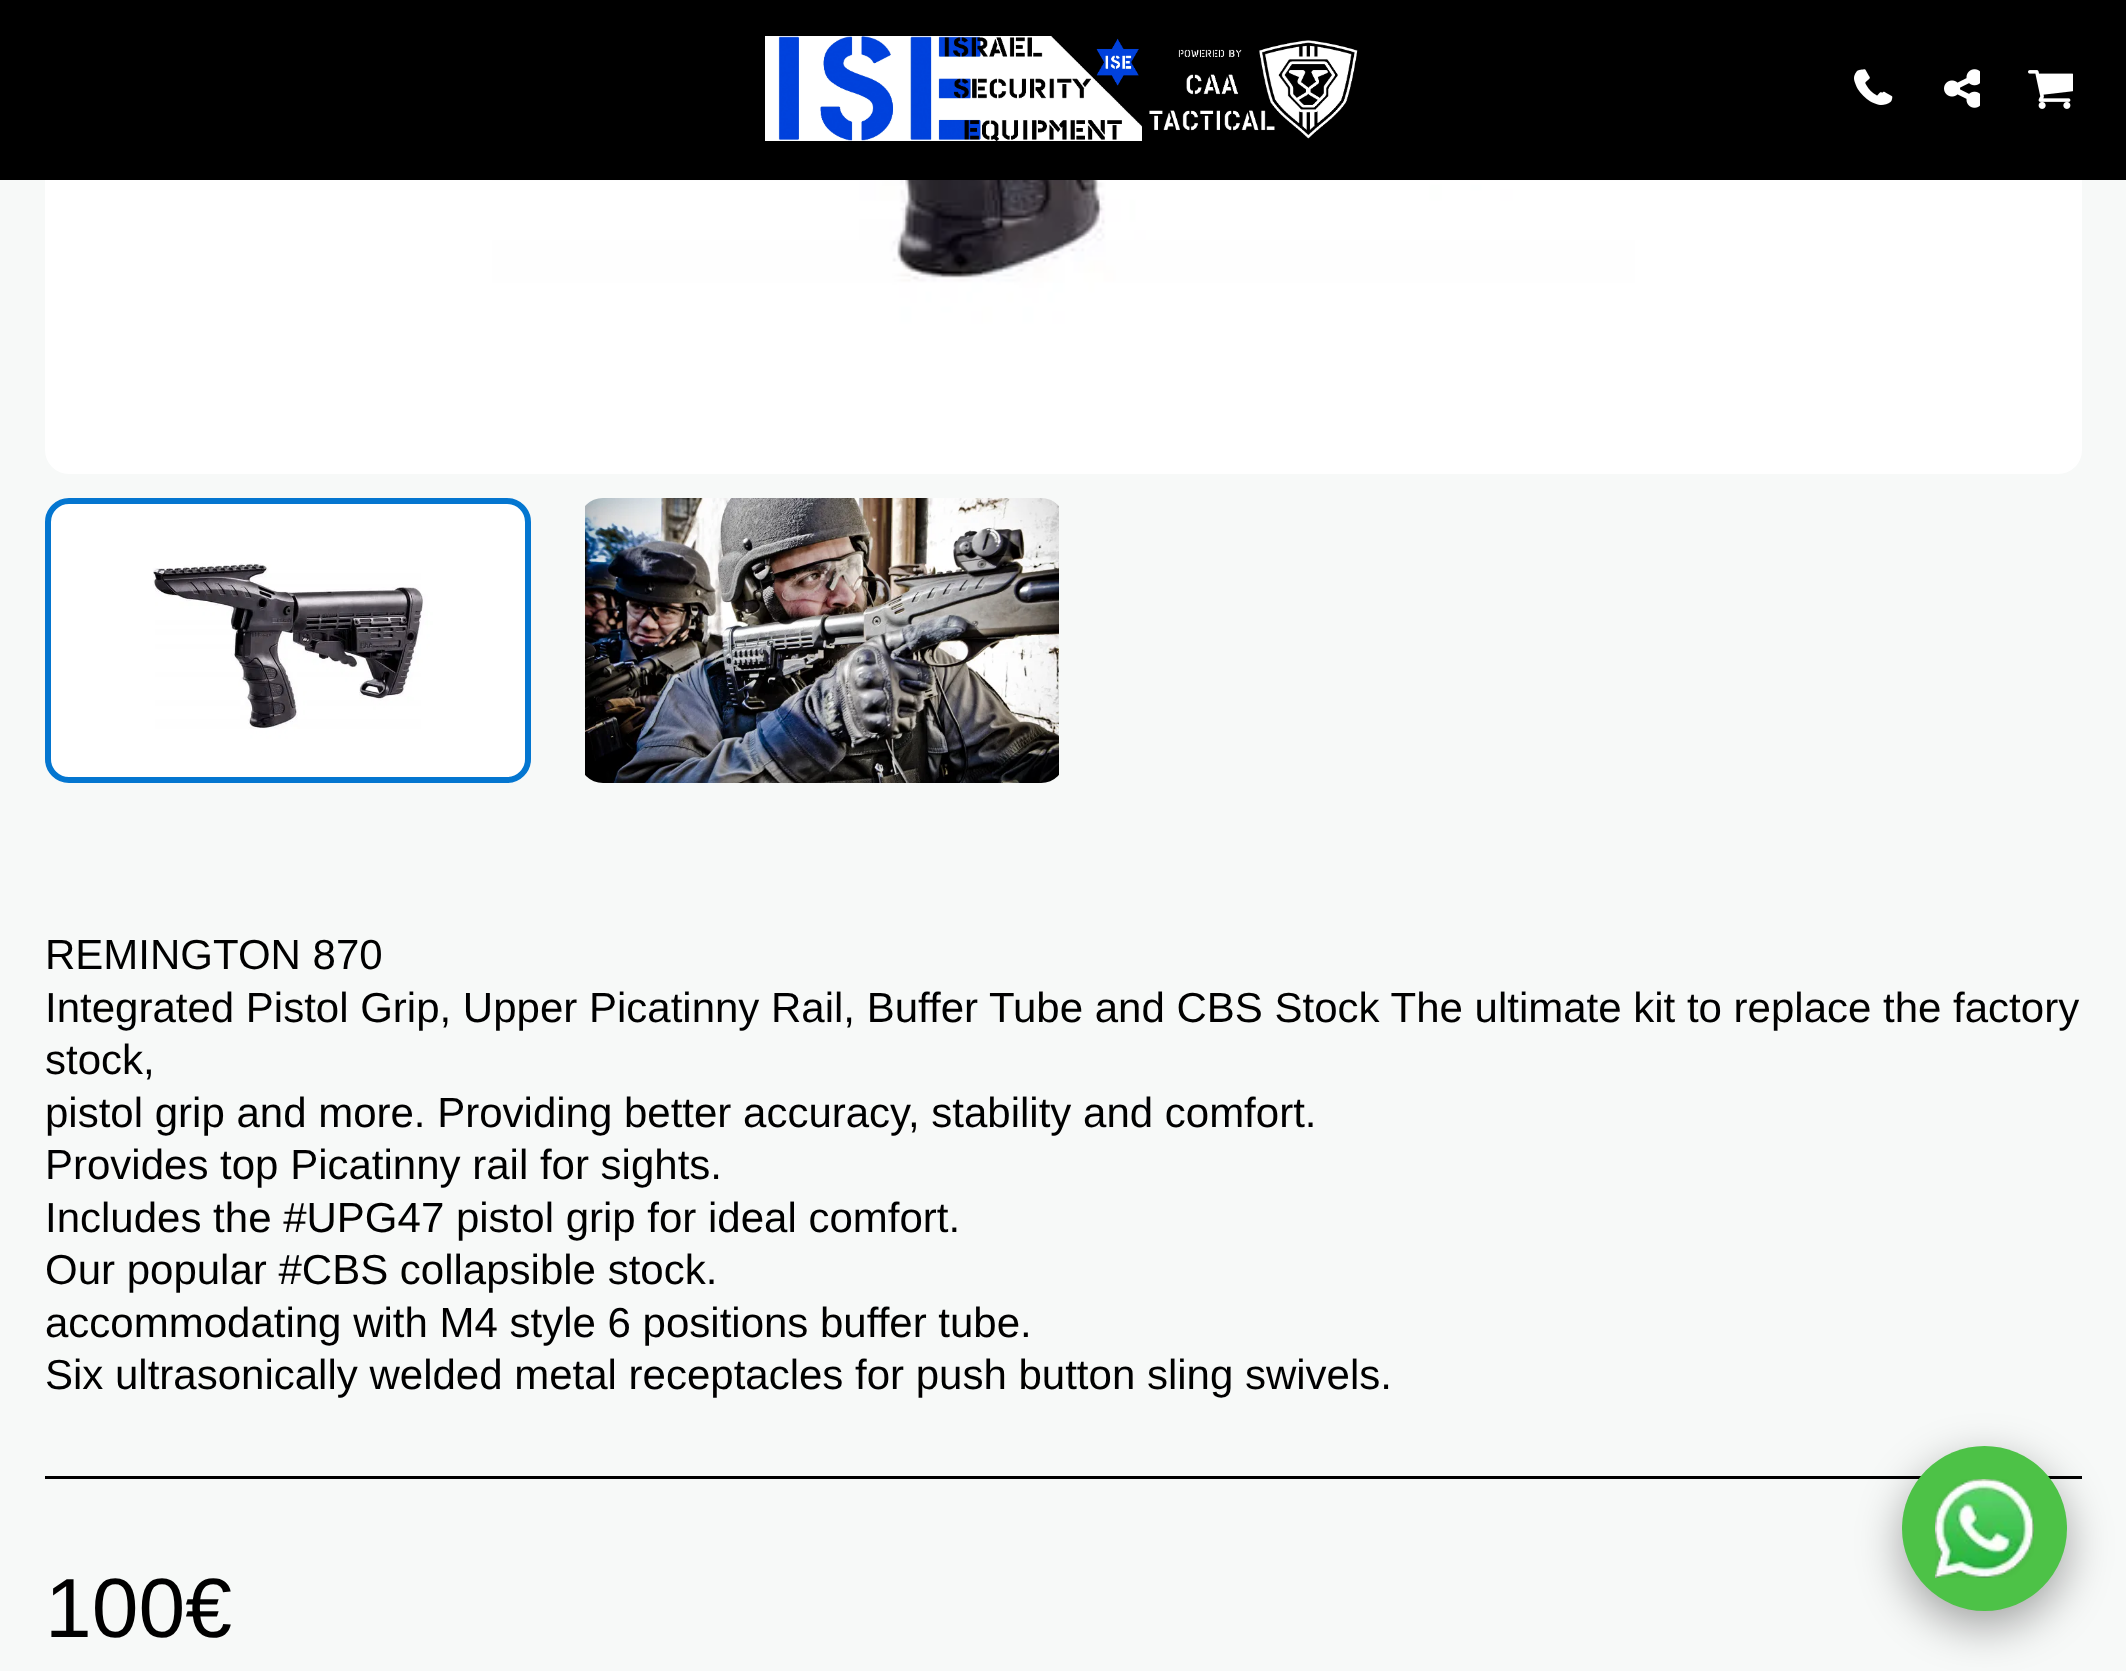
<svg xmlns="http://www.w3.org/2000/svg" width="2126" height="1671">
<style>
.a{font:42px Liberation Sans;fill:#000}
.b{font:84px Liberation Sans;fill:#000}
</style>
<rect width="100%" height="100%" fill="#f7f9f8"/>
<path fill="#000" d="M0 0h2126v180H0z"/>
<image href="1.png" x="765" y="36" width="593" height="105"/>
<image href="2.png" x="1859" y="69" width="34" height="36"/>
<image href="3.png" x="1854" y="69" width="31" height="36"/>
<image href="4.png" x="1944" y="69" width="36" height="39"/>
<image href="5.png" x="2028" y="70" width="45" height="39"/>
<image href="6.png" x="45" y="180" width="2037" height="294"/>
<image href="7.png" x="51" y="498" width="474" height="285"/>
<rect fill="none" stroke="#0476d0" stroke-width="6" x="48" y="501" width="480" height="279" rx="21"/>
<image href="8.png" x="585" y="498" width="474" height="285"/>
<path fill="#000" d="M45 1476h2037v3H45z"/>
<rect fill="#00000059" filter="blur(22.5px)" x="1902" y="1461" width="165" height="165" rx="82.5"/>
<circle fill="#4dc247" cx="1984.5" cy="1528.5" r="82.5"/>
<image href="9.png" x="1935" y="1479" width="99" height="99"/>
<text class="a" x="45" y="969">REMINGTON 870</text>
<text class="a" x="45" y="1022">Integrated Pistol Grip, Upper Picatinny Rail, Buffer Tube and CBS Stock The ultimate kit to replace the factory</text>
<text class="a" x="45" y="1074">stock,</text>
<text class="a" x="45" y="1127">pistol grip and more. Providing better accuracy, stability and comfort.</text>
<text class="a" x="45" y="1179">Provides top Picatinny rail for sights.</text>
<text class="a" x="45" y="1232">Includes the #UPG47 pistol grip for ideal comfort.</text>
<text class="a" x="45" y="1284">Our popular #CBS collapsible stock.</text>
<text class="a" x="45" y="1337">accommodating with M4 style 6 positions buffer tube.</text>
<text class="a" x="45" y="1389">Six ultrasonically welded metal receptacles for push button sling swivels.</text>
<text class="b" x="45" y="1637">100€</text>
</svg>
